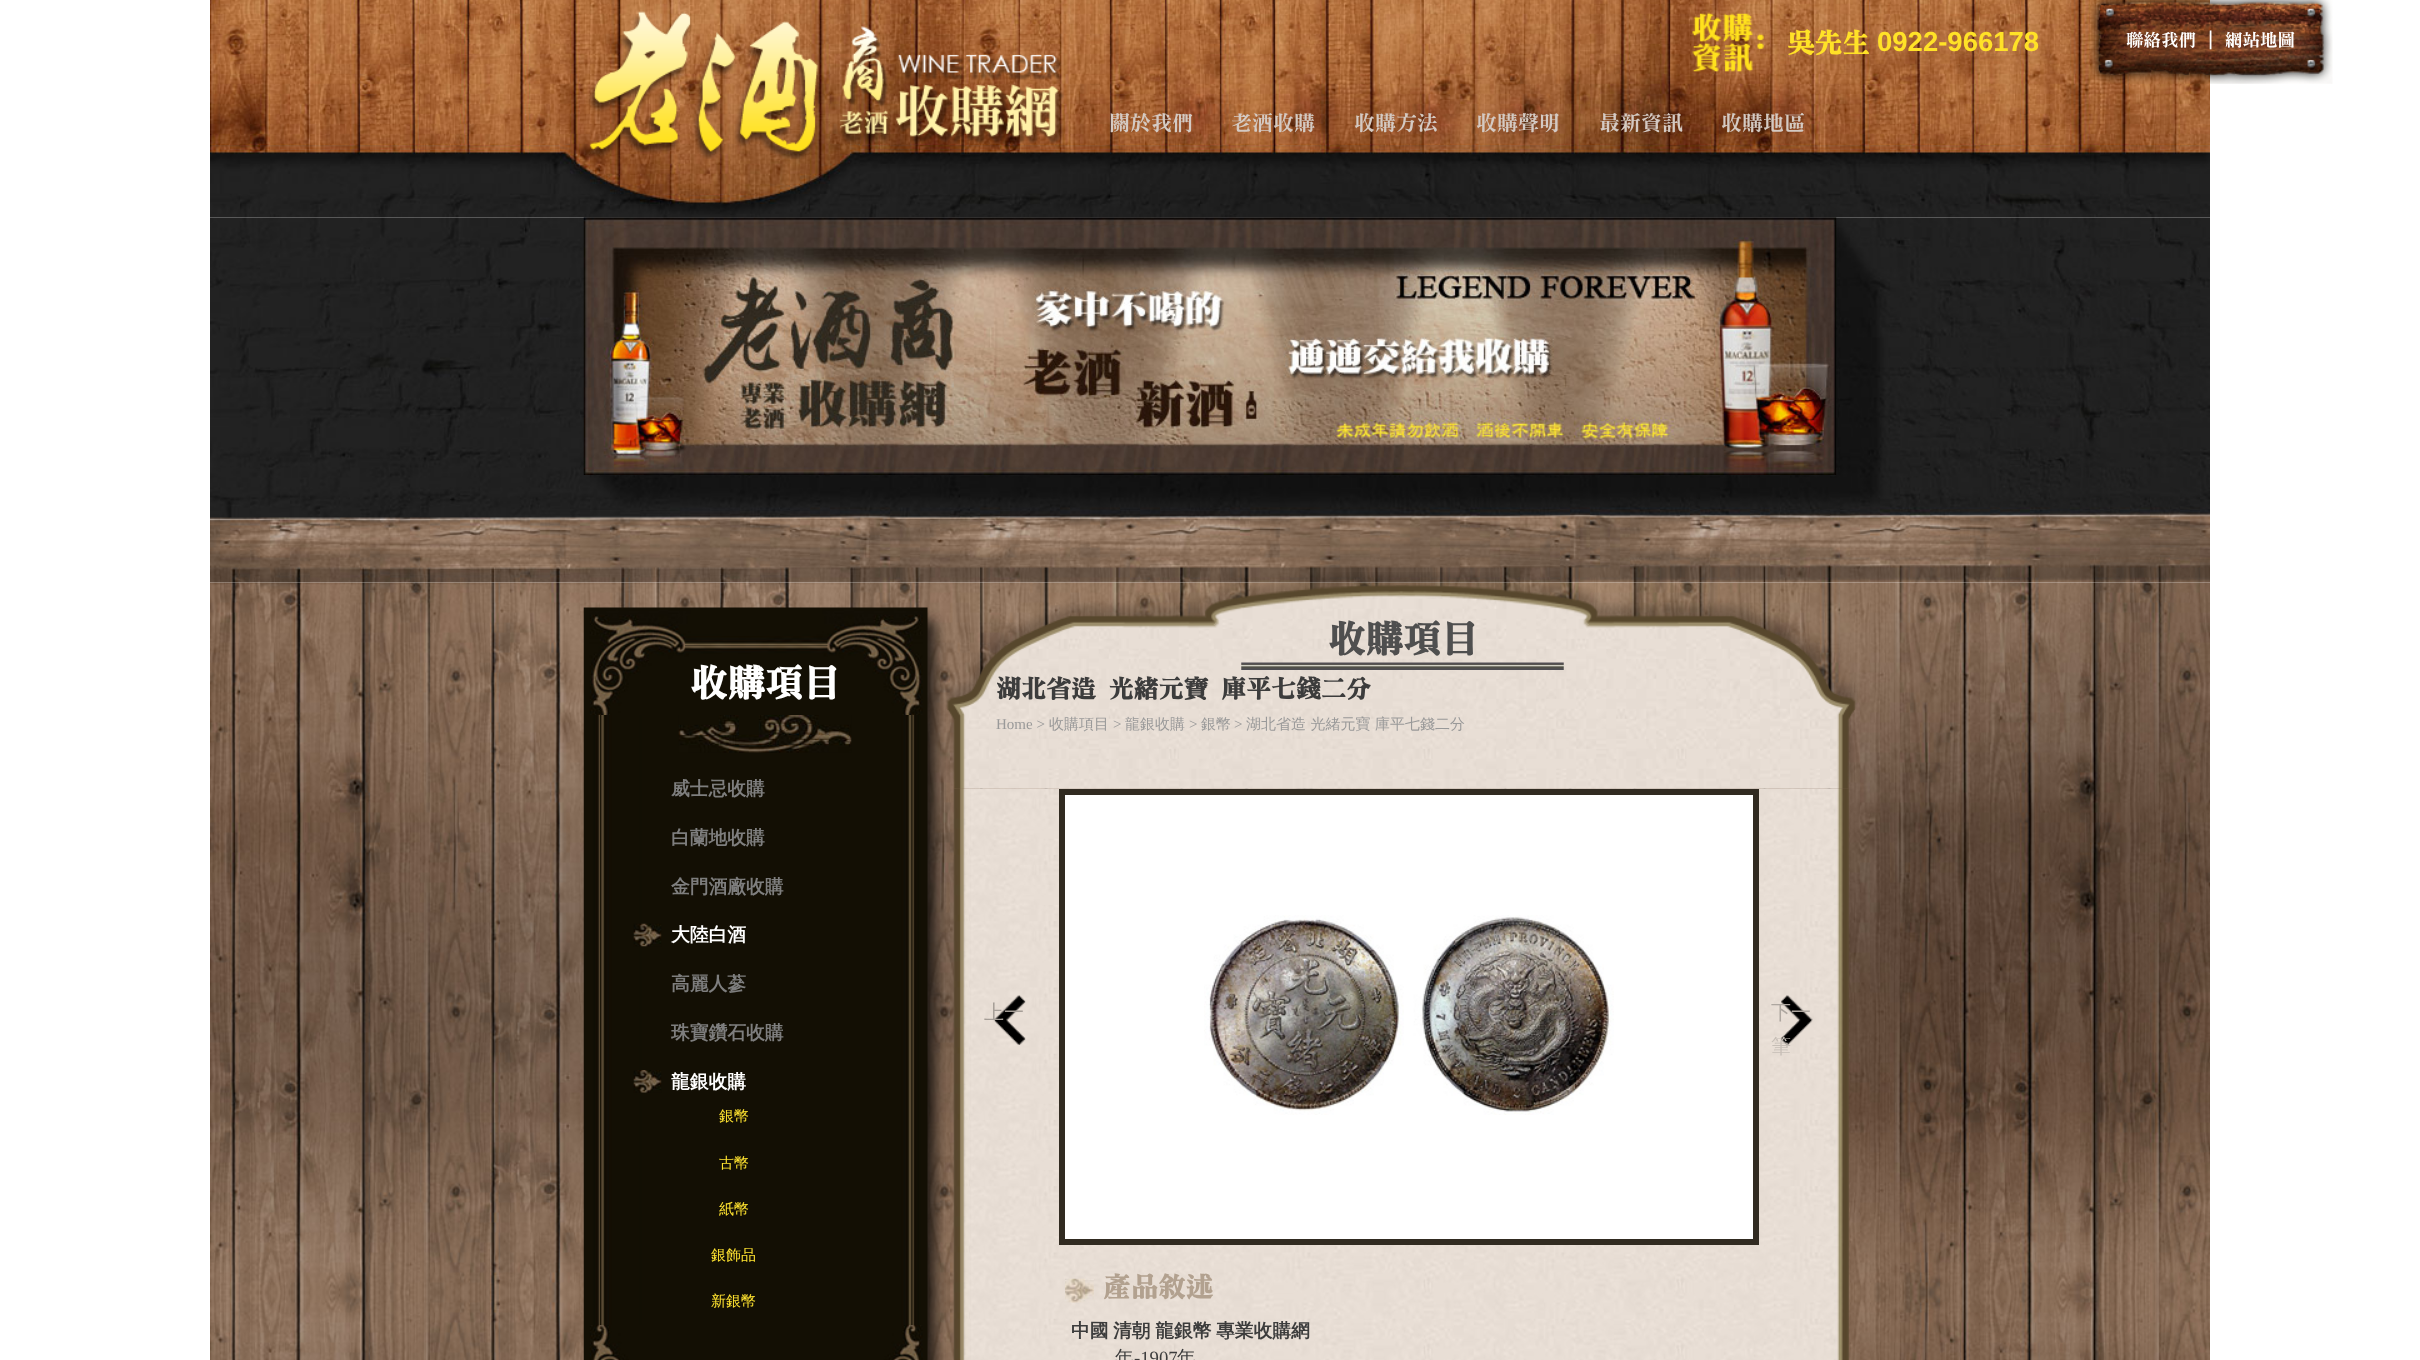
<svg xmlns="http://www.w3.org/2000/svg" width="2420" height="1360">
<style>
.a{font:bold 27.5px 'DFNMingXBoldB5';fill:#ffe227}
.b{font:bold 27.5px Liberation Sans;fill:#ffe227}
.c{font:17.5px 'DFNMingXBoldB5';fill:#fff}
.d{font:20px Liberation Sans;fill:#fff}
.e{font:21px 'DFNMingXBoldB5';fill:#d4cac3}
.f{font:bold 37.5px 'DFNMingXBoldB5';fill:#fff}
.g{font:bold 18.75px WenQuanYi Zen Hei;fill:#7e7e7e}
.h{font:bold 18.75px WenQuanYi Zen Hei;fill:#fff}
.i{font:500 15px WenQuanYi Zen Hei;fill:#ffe330}
.j{font:bold 37.5px 'DFNMingXBoldB5';fill:#4f4f4f}
.k{font:bold 25px 'DFNMingXBoldB5';fill:#3c3c3c}
.l{font:15px Liberation Serif;fill:#999}
.m{font:500 15px WenQuanYi Zen Hei;fill:#999}
.n{font:500 20px WenQuanYi Zen Hei;fill:#a59e97}
.o{font:500 20px WenQuanYi Zen Hei;fill:#aea7a0}
.p{font:500 20px WenQuanYi Zen Hei;fill:#c6beb6}
.q{font:bold 27.5px 'DFNMingXBoldB5';fill:#b2a18f}
.r{font:bold 18.75px WenQuanYi Zen Hei;fill:#3c3c3c}
.s{font:500 18.75px WenQuanYi Zen Hei;fill:#3c3c3c}
.t{font:18.75px Liberation Serif;fill:#3c3c3c}
</style>
<rect width="100%" height="100%" fill="#fff"/>
<image href="1.png" x="210" y="0" width="2000" height="218"/>
<image href="2.png" x="585" y="11" width="479" height="148"/>
<image href="3.png" x="1692" y="12" width="72" height="60"/>
<image href="4.png" x="2089" y="0" width="244" height="84"/>
<image href="5.png" x="210" y="217" width="2000" height="366"/>
<image href="6.png" x="583" y="217" width="1254" height="258"/>
<image href="7.png" x="210" y="582" width="2000" height="778"/>
<image href="8.png" x="583" y="607" width="363" height="108"/>
<image href="9.png" x="583" y="715" width="363" height="610"/>
<image href="10.png" x="678" y="715" width="174" height="38"/>
<image href="11.png" x="633" y="923" width="29" height="24"/>
<image href="12.png" x="633" y="1070" width="29" height="23"/>
<image href="13.png" x="583" y="1325" width="363" height="35"/>
<image href="14.png" x="946" y="572" width="912" height="217"/>
<image href="15.png" x="1241" y="662" width="323" height="8"/>
<image href="16.png" x="953" y="788" width="896" height="572"/>
<image href="17.png" x="993" y="995" width="33" height="50"/>
<path fill="#fff" stroke="#312b21" stroke-width="6" d="M1062 792h694v450H1062z"/>
<image href="18.png" x="1204" y="915" width="410" height="200"/>
<image href="19.png" x="1781" y="995" width="32" height="50"/>
<image href="20.png" x="1065" y="1278" width="29" height="25"/>
<text class="a" x="1787" y="51">吳先生</text>
<text class="b" x="1877" y="51">0922-966178</text>
<text class="c" x="2126" y="45">聯絡我們</text>
<text class="d" x="2208" y="45">|</text>
<text class="c" x="2225" y="45">網站地圖</text>
<text class="e" x="1109" y="129">關於我們</text>
<text class="e" x="1231" y="129">老酒收購</text>
<text class="e" x="1354" y="129">收購方法</text>
<text class="e" x="1476" y="129">收購聲明</text>
<text class="e" x="1599" y="129">最新資訊</text>
<text class="e" x="1721" y="129">收購地區</text>
<text class="f" x="690" y="694">收購項目</text>
<text class="g" x="671" y="795">威士忌收購</text>
<text class="g" x="671" y="844">白蘭地收購</text>
<text class="g" x="671" y="893">金門酒廠收購</text>
<text class="h" x="671" y="941">大陸白酒</text>
<text class="g" x="671" y="990">高麗人蔘</text>
<text class="g" x="671" y="1039">珠寶鑽石收購</text>
<text class="h" x="671" y="1088">龍銀收購</text>
<text class="i" x="719" y="1121">銀幣</text>
<text class="i" x="719" y="1168">古幣</text>
<text class="i" x="719" y="1214">紙幣</text>
<text class="i" x="711" y="1260">銀飾品</text>
<text class="i" x="711" y="1306">新銀幣</text>
<text class="j" x="1328" y="650">收購項目</text>
<text class="k" x="996" y="696">湖北省造 光緒元寶 庫平七錢二分</text>
<text class="l" x="996" y="729">Home &gt;</text>
<text class="m" x="1049" y="729">收購項目</text>
<text class="l" x="1113" y="729">&gt;</text>
<text class="m" x="1125" y="729">龍銀收購</text>
<text class="l" x="1189" y="729">&gt;</text>
<text class="m" x="1201" y="729">銀幣</text>
<text class="l" x="1234" y="729">&gt;</text>
<text class="m" x="1246" y="729">湖北省造 光緒元寶 庫平七錢二分</text>
<text class="n" x="984" y="1019">上一</text>
<text class="o" x="1771" y="1019">下一</text>
<text class="p" x="1771" y="1053">筆</text>
<text class="q" x="1103" y="1295">產品敘述</text>
<text class="r" x="1071" y="1337" word-spacing="-1">中國 清朝 龍銀幣 專業收購網</text>
<text class="s" x="1115" y="1364">年</text>
<text class="t" x="1134" y="1364">-1907</text>
<text class="s" x="1177" y="1364">年</text>
</svg>
